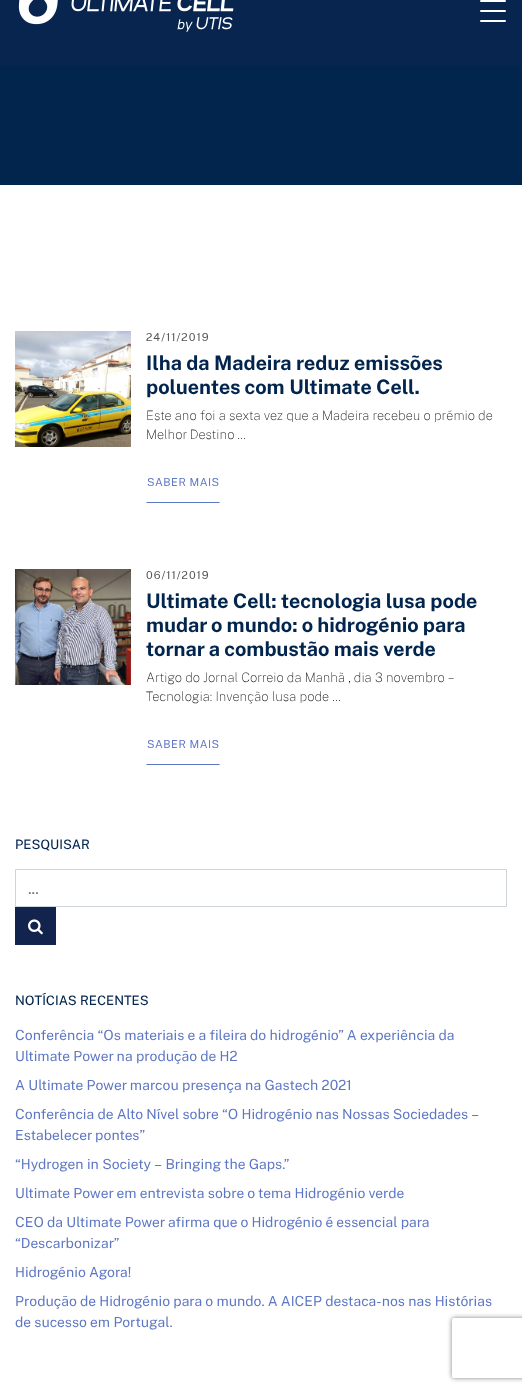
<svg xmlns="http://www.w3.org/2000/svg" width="522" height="1392">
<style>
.a{font:11px Public Sans;letter-spacing:1px;fill:#555}
.b{font:bold 20px Public Sans;fill:#02254e}
.c{font:100 13px Public Sans;fill:#111}
.d{font:11px Public Sans;letter-spacing:0.5px;fill:#5c76c4}
.e{font:500 13px Public Sans;fill:#02254e}
.f{font:16px Public Sans;fill:#6c757d}
.g{font:14px Public Sans;fill:#5c76c4}
</style>
<defs>
<clipPath id="clip1"><path d="M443 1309h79v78h-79zm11 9h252c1 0 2 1 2 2v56c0 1-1 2-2 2h-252c-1 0-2-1-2-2v-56c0-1 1-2 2-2z" clip-rule="evenodd"/></clipPath>
</defs>
<rect width="100%" height="100%" fill="#fff"/>
<path fill="#07254e" d="M0 0h522v65H0z"/>
<image href="1.png" x="18" y="0" width="216" height="32"/>
<rect fill="#fff" x="480" y="20" width="26" height="2" rx="1"/>
<rect fill="#fff" x="480" width="26" height="2" rx="1"/>
<rect fill="#fff" x="480" y="10" width="26" height="2" rx="1"/>
<path fill="#02254e" d="M0 65h522v120H0z"/>
<image href="2.png" x="15" y="331" width="116" height="116"/>
<path fill="#5c76c4" d="M220 503h-74l1-1h72z"/>
<image href="3.png" x="15" y="569" width="116" height="116"/>
<path fill="#5c76c4" d="M220 765h-74l1-1h72z"/>
<path fill="none" stroke="#ced4da" d="M15.5 869.5h491v37H15.5z"/>
<path fill="#12244e" d="M15 907h41v38H15z"/>
<image href="4.png" x="28" y="919" width="15" height="16"/>
<g clip-path="url(#clip1)">
<rect fill="#808080" filter="blur(2.5px)" x="452" y="1318" width="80" height="60" rx="2"/>
</g>
<text class="a" x="146" y="341">24/11/2019</text>
<text class="b" x="146" y="370">Ilha da Madeira reduz emissões</text>
<text class="b" x="146" y="394">poluentes com Ultimate Cell.</text>
<text class="c" x="146" y="420">Este ano foi a sexta vez que a Madeira recebeu o prémio de</text>
<text class="c" x="146" y="439">Melhor Destino …</text>
<text class="d" x="147" y="486">SABER MAIS</text>
<text class="a" x="146" y="579">06/11/2019</text>
<text class="b" x="146" y="608">Ultimate Cell: tecnologia lusa pode</text>
<text class="b" x="146" y="632">mudar o mundo: o hidrogénio para</text>
<text class="b" x="146" y="656">tornar a combustão mais verde</text>
<text class="c" x="146" y="682">Artigo do Jornal Correio da Manhã , dia 3 novembro –</text>
<text class="c" x="146" y="701">Tecnologia: Invenção lusa pode …</text>
<text class="d" x="147" y="748">SABER MAIS</text>
<text class="e" x="15" y="849">PESQUISAR</text>
<text class="f" x="28" y="894">...</text>
<text class="e" x="15" y="1005">NOTÍCIAS RECENTES</text>
<text class="g" x="15" y="1040">Conferência “Os materiais e a fileira do hidrogénio” A experiência da</text>
<text class="g" x="15" y="1061">Ultimate Power na produção de H2</text>
<text class="g" x="15" y="1090">A Ultimate Power marcou presença na Gastech 2021</text>
<text class="g" x="15" y="1119">Conferência de Alto Nível sobre “O Hidrogénio nas Nossas Sociedades –</text>
<text class="g" x="15" y="1140">Estabelecer pontes”</text>
<text class="g" x="15" y="1169">“Hydrogen in Society – Bringing the Gaps.”</text>
<text class="g" x="15" y="1198">Ultimate Power em entrevista sobre o tema Hidrogénio verde</text>
<text class="g" x="15" y="1227">CEO da Ultimate Power afirma que o Hidrogénio é essencial para</text>
<text class="g" x="15" y="1248">“Descarbonizar”</text>
<text class="g" x="15" y="1277">Hidrogénio Agora!</text>
<text class="g" x="15" y="1306">Produção de Hidrogénio para o mundo. A AICEP destaca-nos nas Histórias</text>
<text class="g" x="15" y="1327">de sucesso em Portugal.</text>
</svg>
